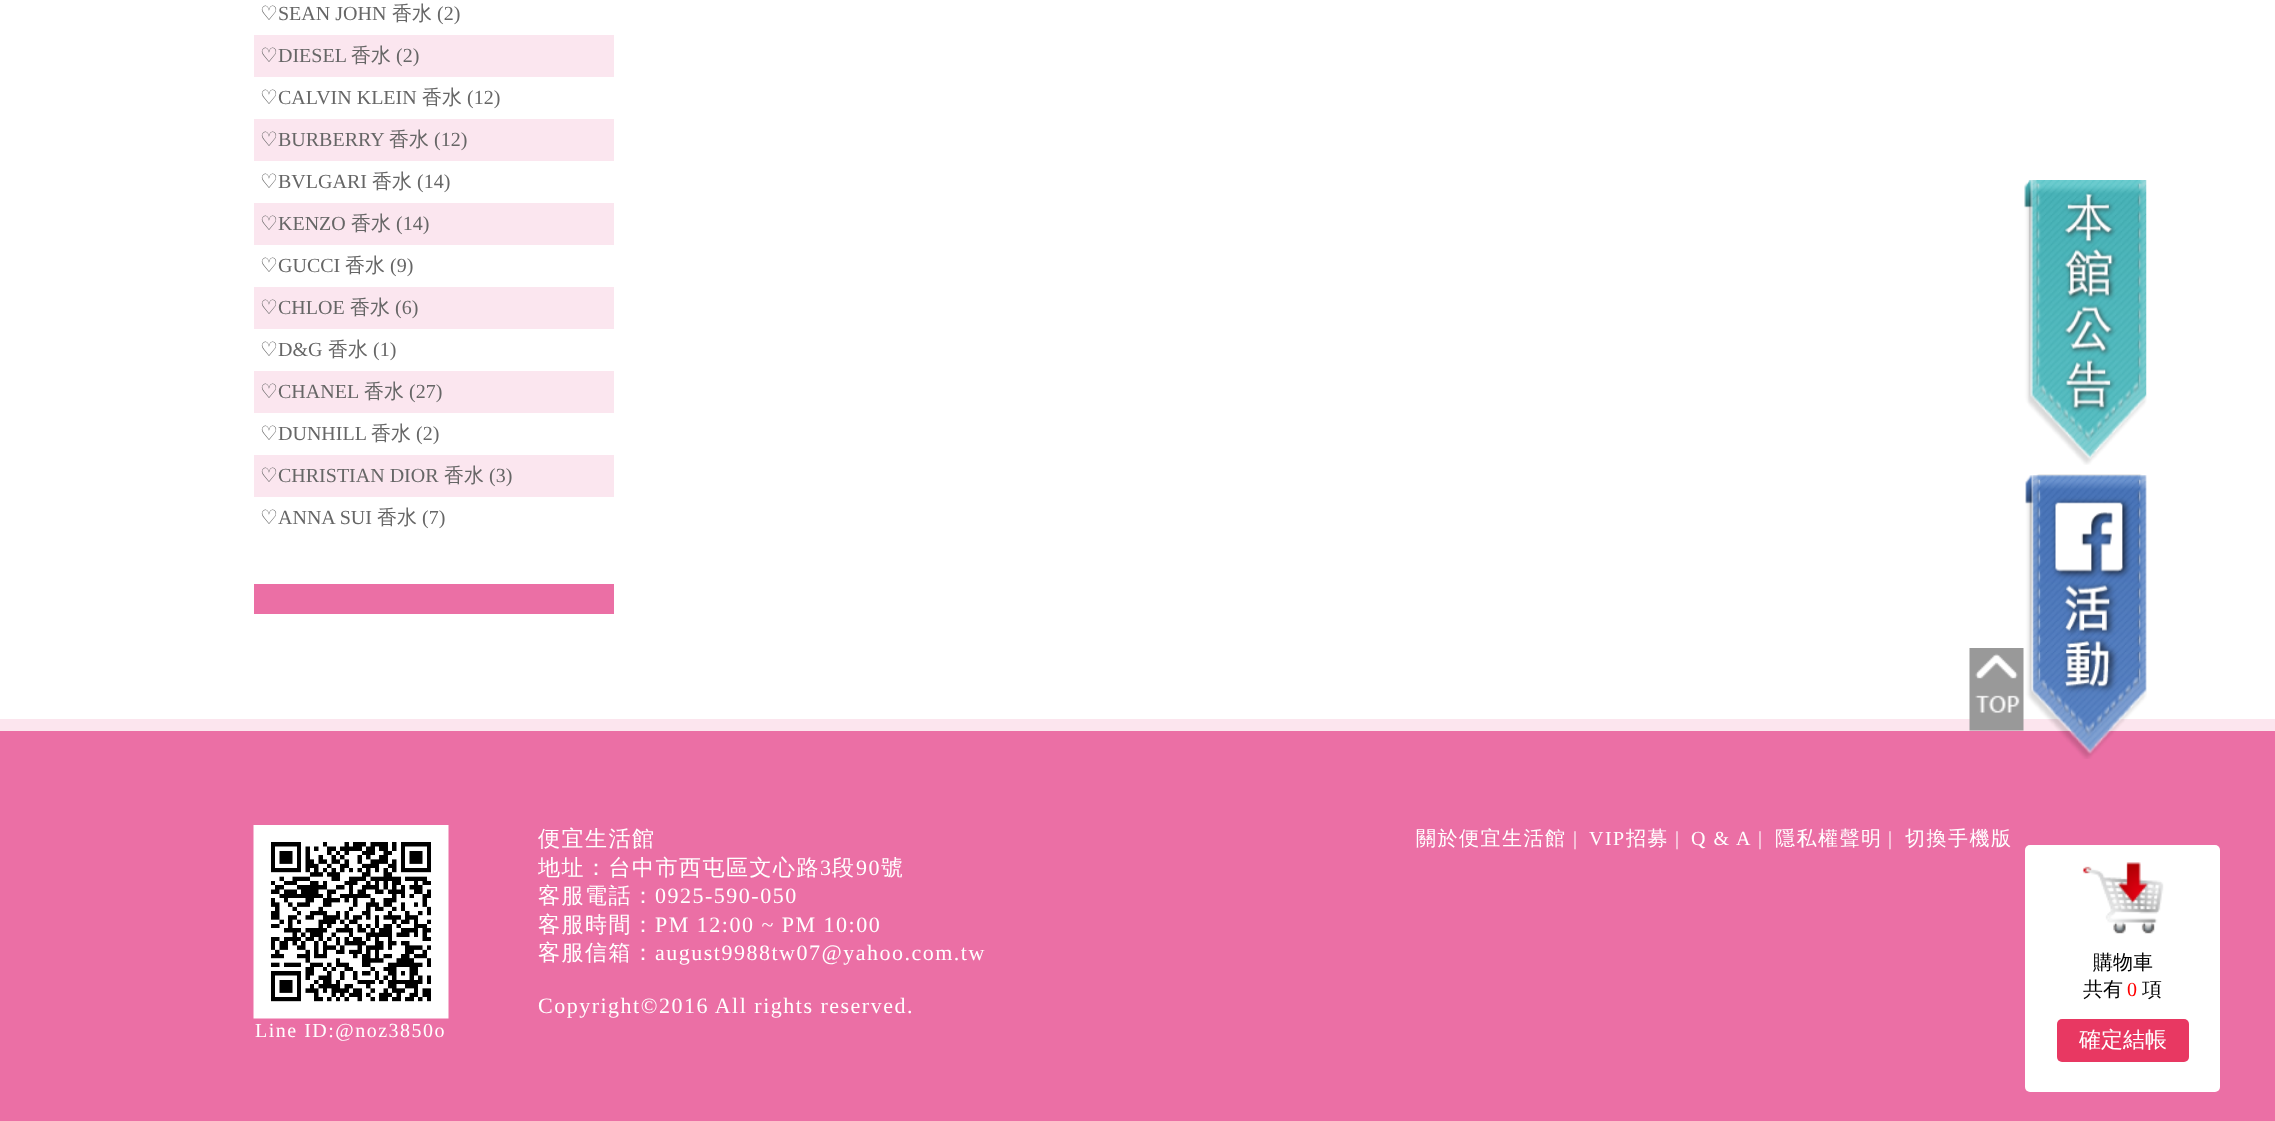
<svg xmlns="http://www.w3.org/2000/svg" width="2275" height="1121">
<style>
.a{font:20px DejaVu Sans;fill:#666}
.b{font:20px Liberation Serif;fill:#666}
.c{font:500 20px WenQuanYi Zen Hei;fill:#666}
.d{font:500 22px WenQuanYi Zen Hei;letter-spacing:1.5px;fill:#fff}
.e{font:22px Liberation Serif;letter-spacing:1.5px;fill:#fff}
.f{font:500 20px WenQuanYi Zen Hei;letter-spacing:1.5px;fill:#fff}
.g{font:20px Liberation Serif;letter-spacing:1.5px;fill:#fff}
.h{font:500 20px WenQuanYi Zen Hei;fill:#000}
.i{font:20px Liberation Serif;fill:#f00}
.j{font:500 22px WenQuanYi Zen Hei;fill:#fff}
</style>
<rect width="100%" height="100%" fill="#fff"/>
<path fill="#eb6fa5" d="M254 584h360v30H254z"/>
<path fill="#fbe6ef" d="M254 35h360v42H254z"/>
<path fill="#fbe6ef" d="M254 119h360v42H254z"/>
<path fill="#fbe6ef" d="M254 203h360v42H254z"/>
<path fill="#fbe6ef" d="M254 287h360v42H254z"/>
<path fill="#fbe6ef" d="M254 371h360v42H254z"/>
<path fill="#fbe6ef" d="M254 455h360v42H254z"/>
<image href="1.png" x="2024" y="180" width="123" height="285"/>
<path fill="#eb6fa5" d="M0 731h2275v390H0z"/>
<path fill="#fce5ee" d="M0 719h2275v12H0z"/>
<image href="2.png" x="2025" y="474" width="122" height="285"/>
<image href="3.png" x="1969" y="648" width="55" height="83"/>
<image href="4.png" x="253" y="825" width="196" height="194"/>
<rect fill="#fff" x="2025" y="845" width="195" height="247" rx="5"/>
<image href="5.png" x="2082" y="862" width="82" height="72"/>
<rect fill="#e83862" x="2057" y="1019" width="132" height="43" rx="5"/>
<text class="a" x="260" y="20">♡</text>
<text class="b" x="278" y="20">SEAN JOHN</text>
<text class="c" x="392" y="20">香水</text>
<text class="b" x="437" y="20">(2)</text>
<text class="a" x="260" y="62">♡</text>
<text class="b" x="278" y="62">DIESEL</text>
<text class="c" x="351" y="62">香水</text>
<text class="b" x="396" y="62">(2)</text>
<text class="a" x="260" y="104">♡</text>
<text class="b" x="278" y="104">CALVIN KLEIN</text>
<text class="c" x="422" y="104">香水</text>
<text class="b" x="467" y="104">(12)</text>
<text class="a" x="260" y="146">♡</text>
<text class="b" x="278" y="146">BURBERRY</text>
<text class="c" x="389" y="146">香水</text>
<text class="b" x="434" y="146">(12)</text>
<text class="a" x="260" y="188">♡</text>
<text class="b" x="278" y="188">BVLGARI</text>
<text class="c" x="372" y="188">香水</text>
<text class="b" x="417" y="188">(14)</text>
<text class="a" x="260" y="230">♡</text>
<text class="b" x="278" y="230">KENZO</text>
<text class="c" x="351" y="230">香水</text>
<text class="b" x="396" y="230">(14)</text>
<text class="a" x="260" y="272">♡</text>
<text class="b" x="278" y="272">GUCCI</text>
<text class="c" x="345" y="272">香水</text>
<text class="b" x="390" y="272">(9)</text>
<text class="a" x="260" y="314">♡</text>
<text class="b" x="278" y="314">CHLOE</text>
<text class="c" x="350" y="314">香水</text>
<text class="b" x="395" y="314">(6)</text>
<text class="a" x="260" y="356">♡</text>
<text class="b" x="278" y="356">D&amp;G</text>
<text class="c" x="328" y="356">香水</text>
<text class="b" x="373" y="356">(1)</text>
<text class="a" x="260" y="398">♡</text>
<text class="b" x="278" y="398">CHANEL</text>
<text class="c" x="364" y="398">香水</text>
<text class="b" x="409" y="398">(27)</text>
<text class="a" x="260" y="440">♡</text>
<text class="b" x="278" y="440">DUNHILL</text>
<text class="c" x="371" y="440">香水</text>
<text class="b" x="416" y="440">(2)</text>
<text class="a" x="260" y="482">♡</text>
<text class="b" x="278" y="482">CHRISTIAN DIOR</text>
<text class="c" x="444" y="482">香水</text>
<text class="b" x="489" y="482">(3)</text>
<text class="a" x="260" y="524">♡</text>
<text class="b" x="278" y="524">ANNA SUI</text>
<text class="c" x="377" y="524">香水</text>
<text class="b" x="422" y="524">(7)</text>
<text class="d" x="538" y="846">便宜生活館</text>
<text class="d" x="538" y="875">地址：台中市西屯區文心路</text>
<text class="e" x="820" y="875">3</text>
<text class="d" x="832" y="875">段</text>
<text class="e" x="856" y="875">90</text>
<text class="d" x="881" y="875">號</text>
<text class="d" x="538" y="903">客服電話：</text>
<text class="e" x="655" y="903">0925-590-050</text>
<text class="d" x="538" y="932">客服時間：</text>
<text class="e" x="655" y="932">PM 12:00 ~ PM 10:00</text>
<text class="d" x="538" y="960">客服信箱：</text>
<text class="e" x="655" y="960">august9988tw07@yahoo.com.tw</text>
<text class="e" x="538" y="1013">Copyright©2016 All rights reserved.</text>
<text class="f" x="1416" y="845">關於便宜生活館</text>
<text class="g" x="1573" y="845">|</text>
<text class="g" x="1589" y="845">VIP</text>
<text class="f" x="1626" y="845">招募</text>
<text class="g" x="1675" y="845">|</text>
<text class="g" x="1691" y="845">Q &amp; A</text>
<text class="g" x="1758" y="845">|</text>
<text class="f" x="1775" y="845">隱私權聲明</text>
<text class="g" x="1888" y="845">|</text>
<text class="f" x="1905" y="845">切換手機版</text>
<text class="g" x="255" y="1037">Line ID:@noz3850o</text>
<text class="h" x="2093" y="969">購物車</text>
<text class="h" x="2083" y="996">共有</text>
<text class="i" x="2127" y="996">0</text>
<text class="h" x="2142" y="996">項</text>
<text class="j" x="2079" y="1047">確定結帳</text>
</svg>
